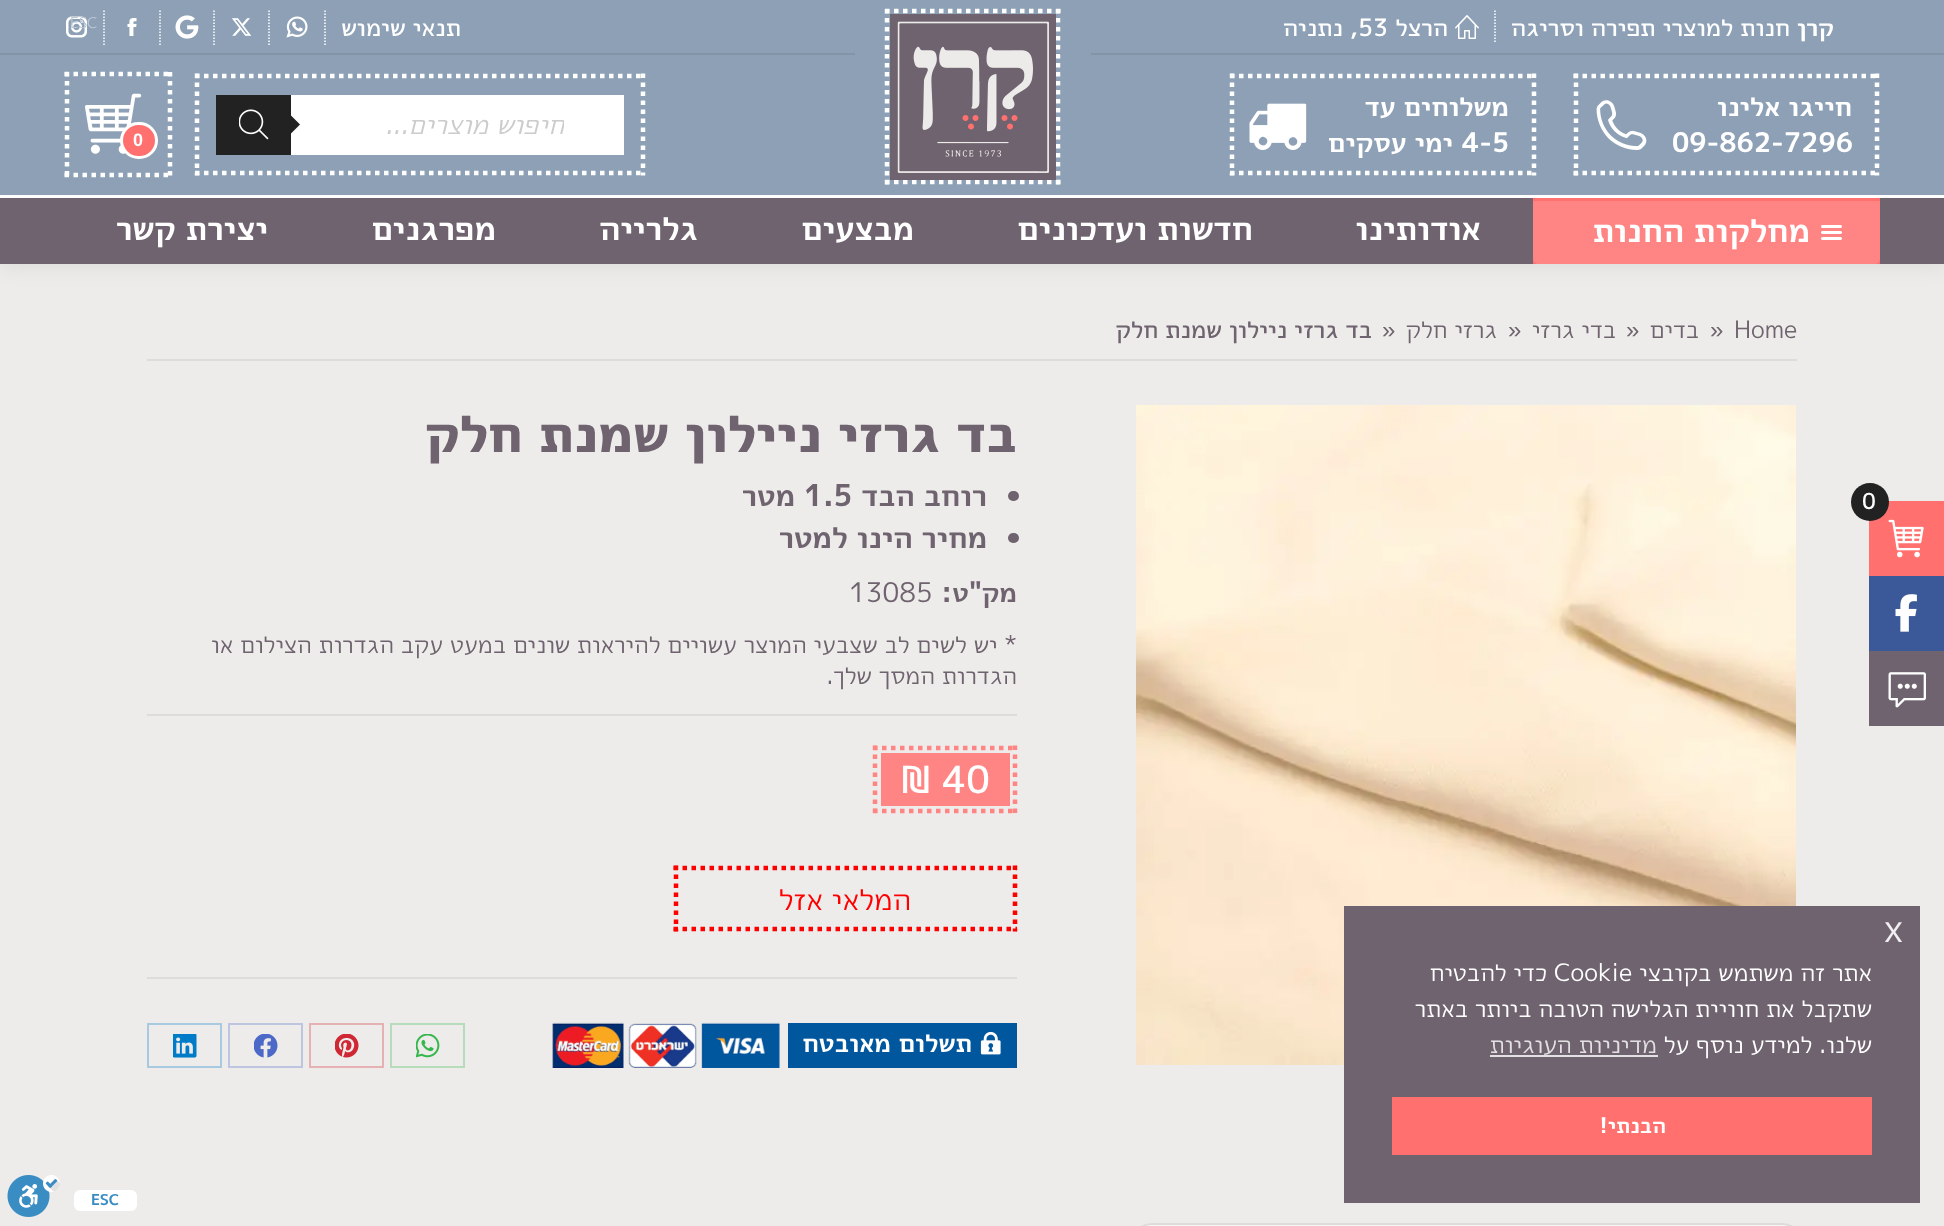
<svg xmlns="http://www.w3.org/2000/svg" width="1944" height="1226">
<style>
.a{font:500 22px 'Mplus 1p';fill:#fff}
.b{font:bold 24px 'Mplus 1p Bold';direction:rtl;fill:#fff}
.c{font:500 24px 'Mplus 1p';direction:rtl;fill:#fff}
.d{font:500 24px 'Mplus 1p';fill:#fff}
.e{font:bold 27px 'Mplus 1p Bold';direction:rtl;fill:#fff}
.f{font:bold 27px 'Mplus 1p Bold';fill:#fff}
.g{font:italic 27px 'Mplus 1p';direction:rtl;fill:#ccc}
.h{font:bold 18px Liberation Sans;fill:#fff}
.i{font:bold 33px 'Mplus 1p Bold';direction:rtl;fill:#fff}
.j{font:24px 'Mplus 1p';fill:#6e636e}
.k{font:24px Liberation Sans;fill:#6e636e}
.l{font:24px 'Mplus 1p';direction:rtl;fill:#6e636e}
.m{font:500 24px 'Mplus 1p';direction:rtl;fill:#6e636e}
.n{font:800 52.5px 'Mplus 1p';direction:rtl;fill:#6e636e}
.o{font:bold 30px 'Mplus 1p Bold';direction:rtl;fill:#6e636e}
.p{font:bold 30px 'Mplus 1p Bold';fill:#6e636e}
.q{font:bold 27px 'Mplus 1p Bold';direction:rtl;fill:#6e636e}
.r{font:27px 'Mplus 1p';fill:#6e636e}
.s{font:500 37.5px 'Mplus 1p';fill:#fff}
.t{font:30px 'Mplus 1p';direction:rtl;fill:#f00}
.u{font:bold 25.5px 'Mplus 1p Bold';direction:rtl;fill:#fff}
.v{font:15px 'Mplus 1p';fill:#bbc6d3}
.w{font:bold 15px 'Mplus 1p Bold';fill:#3a8dc2}
.x{font:38px 'Mplus 1p';fill:#f1eff1}
.y{font:24px 'Mplus 1p';direction:rtl;fill:#fff}
.z{font:24px 'Mplus 1p';fill:#fff}
.a1{font:24px 'Mplus 1p';direction:rtl;fill:#e2e0e2}
.b1{font:bold 21.5px 'Mplus 1p Bold';direction:rtl;fill:#fff}
</style>
<defs>
<clipPath id="clip1"><path d="M216 105h348v41H216z"/></clipPath>
</defs>
<rect width="100%" height="100%" fill="#eeecea"/>
<path fill="#ff706e" d="M1869 501h75v75H1869z"/>
<image href="1.png" x="1888" y="519" width="36" height="39"/>
<circle fill="#222" cx="1870" cy="502" r="19"/>
<path fill="#3b5998" d="M1869 576h75v75H1869z"/>
<image href="2.png" x="1895" y="594" width="22" height="38"/>
<path fill="#6e636e" d="M1869 651h75v75H1869z"/>
<image href="3.png" x="1888" y="672" width="38" height="36"/>
<path fill="#00000012" filter="blur(11px)" d="M-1 -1h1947v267H-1z"/>
<path fill="#8da0b5" d="M0 55h1944v140H0z"/>
<path fill="#8da0b5" d="M0 0h1944v53H0z"/>
<path fill="none" stroke="#fff" stroke-width="1.5" stroke-dasharray="1.5 1.5" d="M1495 10.5v33"/>
<image href="4.png" x="1455" y="15" width="24" height="24"/>
<path fill="none" stroke="#fff" stroke-width="1.5" stroke-dasharray="1.5 1.5" d="M325 10.5v34.5"/>
<path fill="none" stroke="#fff" stroke-width="1.5" stroke-dasharray="1.5 1.5" d="M269 10.5v34.5"/>
<image href="5.png" x="286" y="16" width="22" height="22"/>
<path fill="none" stroke="#fff" stroke-width="1.5" stroke-dasharray="1.5 1.5" d="M214 10.5v34.5"/>
<image href="6.png" x="232" y="18" width="20" height="18"/>
<path fill="none" stroke="#fff" stroke-width="1.5" stroke-dasharray="1.5 1.5" d="M160 10.5v34.5"/>
<image href="7.png" x="175" y="15" width="24" height="24"/>
<path fill="none" stroke="#fff" stroke-width="1.5" stroke-dasharray="1.5 1.5" d="M104 10.5v34.5"/>
<image href="8.png" x="127" y="18" width="10" height="18"/>
<image href="9.png" x="66" y="16" width="21" height="22"/>
<path fill="#8394a7" d="M0 53h1944v2H0z"/>
<path fill="none" stroke="#fff" stroke-width="4.5" stroke-dasharray="4.5 4.5" d="M1573.5 76h306"/>
<path fill="none" stroke="#fff" stroke-width="4.5" stroke-dasharray="4.5 4.5" d="M1877 73.5v102"/>
<path fill="none" stroke="#fff" stroke-width="4.5" stroke-dasharray="4.5 4.5" d="M1573.5 173h306"/>
<path fill="none" stroke="#fff" stroke-width="4.5" stroke-dasharray="4.5 4.5" d="M1576 73.5v102"/>
<image href="10.png" x="1596" y="100" width="51" height="50"/>
<path fill="none" stroke="#fff" stroke-width="4.5" stroke-dasharray="4.5 4.5" d="M1230 76h306"/>
<path fill="none" stroke="#fff" stroke-width="4.5" stroke-dasharray="4.5 4.5" d="M1534 73.5v102"/>
<path fill="none" stroke="#fff" stroke-width="4.5" stroke-dasharray="4.5 4.5" d="M1230 173h306"/>
<path fill="none" stroke="#fff" stroke-width="4.5" stroke-dasharray="4.5 4.5" d="M1232 73.5v102"/>
<image href="11.png" x="1249" y="103" width="58" height="47"/>
<path fill="none" stroke="#8da0b5" stroke-width="30" d="M870 -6h206v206H870z"/>
<path fill="none" stroke="#fff" stroke-width="4.5" stroke-dasharray="4.5 4.5" d="M885 11h175.5"/>
<path fill="none" stroke="#fff" stroke-width="4.5" stroke-dasharray="4.5 4.5" d="M1058 9v175.5"/>
<path fill="none" stroke="#fff" stroke-width="4.5" stroke-dasharray="4.5 4.5" d="M885 182h175.5"/>
<path fill="none" stroke="#fff" stroke-width="4.5" stroke-dasharray="4.5 4.5" d="M887 9v175.5"/>
<image href="12.png" x="890" y="14" width="166" height="166"/>
<path fill="none" stroke="#fff" stroke-width="4.5" stroke-dasharray="4.5 4.5" d="M195 76h450"/>
<path fill="none" stroke="#fff" stroke-width="4.5" stroke-dasharray="4.5 4.5" d="M643 73.5v102"/>
<path fill="none" stroke="#fff" stroke-width="4.5" stroke-dasharray="4.5 4.5" d="M195 173h450"/>
<path fill="none" stroke="#fff" stroke-width="4.5" stroke-dasharray="4.5 4.5" d="M197 73.5v102"/>
<path fill="#fff" d="M291 95h333v60H291z"/>
<path fill="#222" d="M216 95h75v60H216z"/>
<path fill="#222" d="M288 136.5v-24l12 12z"/>
<image href="13.png" x="239" y="109" width="30" height="31"/>
<path fill="none" stroke="#fff" stroke-width="4.5" stroke-dasharray="4.5 4.5" d="M64.5 74h108"/>
<path fill="none" stroke="#fff" stroke-width="4.5" stroke-dasharray="4.5 4.5" d="M170 72v105"/>
<path fill="none" stroke="#fff" stroke-width="4.5" stroke-dasharray="4.5 4.5" d="M64.5 175h108"/>
<path fill="none" stroke="#fff" stroke-width="4.5" stroke-dasharray="4.5 4.5" d="M67 72v105"/>
<image href="14.png" x="85" y="93" width="57" height="61"/>
<rect fill="#ff706e" stroke="#fff" stroke-width="3" x="121.5" y="123.5" width="35" height="34" rx="17"/>
<path fill="#6e636e" d="M0 198h1944v66H0z"/>
<path fill="#fff" d="M0 195h1944v3H0z"/>
<path fill="#ff706e" d="M1533 198h347v66H1533z"/>
<rect fill="#ff8584" x="1533" y="198" width="347" height="66" rx="5"/>
<rect fill="#ff706e" x="1533" y="198" width="347" height="3" rx="1.5"/>
<image href="15.png" x="1821" y="225" width="21" height="15"/>
<path fill="#dcdcdc" d="M147 359h1650v2H147z"/>
<image href="16.png" x="1136" y="405" width="660" height="660"/>
<rect fill="#f7f6f5" stroke="#dcdcdc" stroke-width="2" x="1138" y="1224" width="658" height="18" rx="14"/>
<path fill="#dcdcdc" d="M147 714h870v2H147z"/>
<rect fill="#6e636e" x="1008" y="491" width="11" height="10" rx="5"/>
<rect fill="#6e636e" x="1008" y="533" width="11" height="10" rx="5"/>
<path fill="#ff8584" d="M881 753h129v53H881z"/>
<path fill="none" stroke="#ff8584" stroke-width="4.5" stroke-dasharray="4.5 4.5" d="M873 748h144"/>
<path fill="none" stroke="#ff8584" stroke-width="4.5" stroke-dasharray="4.5 4.5" d="M1015 745.5v67.5"/>
<path fill="none" stroke="#ff8584" stroke-width="4.5" stroke-dasharray="4.5 4.5" d="M873 811h144"/>
<path fill="none" stroke="#ff8584" stroke-width="4.5" stroke-dasharray="4.5 4.5" d="M875 745.5v67.5"/>
<path fill="none" stroke="#f00" stroke-width="4.5" stroke-dasharray="4.5 4.5" d="M673.5 868h343.5"/>
<path fill="none" stroke="#f00" stroke-width="4.5" stroke-dasharray="4.5 4.5" d="M1015 865.5v66"/>
<path fill="none" stroke="#f00" stroke-width="4.5" stroke-dasharray="4.5 4.5" d="M673.5 929h343.5"/>
<path fill="none" stroke="#f00" stroke-width="4.5" stroke-dasharray="4.5 4.5" d="M676 865.5v66"/>
<path fill="#dcdcdc" d="M147 977h870v2H147z"/>
<path fill="#00579e" d="M788 1023h229v45H788z"/>
<image href="17.png" x="980" y="1031" width="21" height="24"/>
<image href="18.png" x="552" y="1022" width="228" height="46"/>
<path fill="none" stroke="#b7dcbb" stroke-width="2" d="M391 1024h73v43H391z"/>
<image href="19.png" x="416" y="1034" width="24" height="24"/>
<path fill="none" stroke="#e5b1b3" stroke-width="2" d="M310 1024h73v43H310z"/>
<image href="20.png" x="335" y="1034" width="24" height="24"/>
<path fill="none" stroke="#bdc5e0" stroke-width="2" d="M229 1024h73v43H229z"/>
<image href="21.png" x="254" y="1034" width="24" height="24"/>
<path fill="none" stroke="#a7cae0" stroke-width="2" d="M148 1024h73v43H148z"/>
<image href="22.png" x="173" y="1034" width="24" height="24"/>
<rect fill="#fff" x="74" y="1190" width="63" height="21" rx="6"/>
<image href="23.png" x="7" y="1175" width="53" height="42"/>
<path fill="#6e636e" d="M1344 906h576v297H1344z"/>
<path fill="#e2e0e2" d="M1490 1055h168v2H1490z"/>
<path fill="#ff706e" d="M1392 1097h480v58H1392z"/>
<text class="a" x="1862" y="509">0</text>
<text class="b" x="1834" y="36">קרן</text>
<text class="c" x="1790" y="36">חנות למוצרי תפירה וסריגה</text>
<text class="c" x="1448" y="36">הרצל</text>
<text class="d" x="1358" y="36">53</text>
<text class="c" x="1358" y="36">, נתניה</text>
<text class="c" x="461" y="36">תנאי שימוש</text>
<text class="e" x="1852" y="116">חייגו אלינו</text>
<text class="f" x="1672" y="152">09-862-7296</text>
<text class="e" x="1509" y="116">משלוחים עד</text>
<text class="f" x="1462" y="152">4-5</text>
<text class="e" x="1453" y="152">ימי עסקים</text>
<g clip-path="url(#clip1)">
<text class="g" x="564" y="134">חיפוש מוצרים...</text>
</g>
<text class="h" x="133" y="146">0</text>
<text class="i" x="1810" y="242">מחלקות החנות</text>
<text class="i" x="1481" y="240">אודותינו</text>
<text class="i" x="1253" y="240">חדשות ועדכונים</text>
<text class="i" x="914" y="240">מבצעים</text>
<text class="i" x="698" y="240">גלרייה</text>
<text class="i" x="496" y="240">מפרגנים</text>
<text class="i" x="268" y="240">יצירת קשר</text>
<text class="j" x="1734" y="338">Home</text>
<text class="k" x="1710" y="338">»</text>
<text class="l" x="1699" y="338">בדים</text>
<text class="k" x="1626" y="338">»</text>
<text class="l" x="1616" y="338">בדי גרזי</text>
<text class="k" x="1508" y="338">»</text>
<text class="l" x="1497" y="338">גרזי חלק</text>
<text class="k" x="1382" y="338">»</text>
<text class="m" x="1372" y="338">בד גרזי ניילון שמנת חלק</text>
<text class="n" x="1017" y="452">בד גרזי ניילון שמנת חלק</text>
<text class="o" x="987" y="506">רוחב הבד</text>
<text class="p" x="804" y="506">1.5</text>
<text class="o" x="795" y="506">מטר</text>
<text class="o" x="987" y="548">מחיר הינו למטר</text>
<text class="q" x="1017" y="602">מק"ט:</text>
<text class="r" x="849" y="602">13085</text>
<text class="l" x="1017" y="653">* יש לשים לב שצבעי המוצר עשויים להיראות שונים במעט עקב הגדרות הצילום או</text>
<text class="l" x="1017" y="684">הגדרות המסך שלך.</text>
<text class="s" x="900" y="793">₪ 40</text>
<text class="t" x="911" y="910">המלאי אזל</text>
<text class="u" x="972" y="1052">תשלום מאובטח</text>
<text class="v" x="70" y="28">ESC</text>
<text class="w" x="91" y="1205">ESC</text>
<text class="x" x="1883" y="942">x</text>
<text class="y" x="1872" y="981">אתר זה משתמש בקובצי</text>
<text class="z" x="1554" y="981">Cookie</text>
<text class="y" x="1547" y="981">כדי להבטיח</text>
<text class="y" x="1872" y="1017">שתקבל את חוויית הגלישה הטובה ביותר באתר</text>
<text class="y" x="1872" y="1053">שלנו. למידע נוסף על</text>
<text class="a1" x="1657" y="1053">מדיניות העוגיות</text>
<text class="b1" x="1666" y="1133">הבנתי!</text>
</svg>
